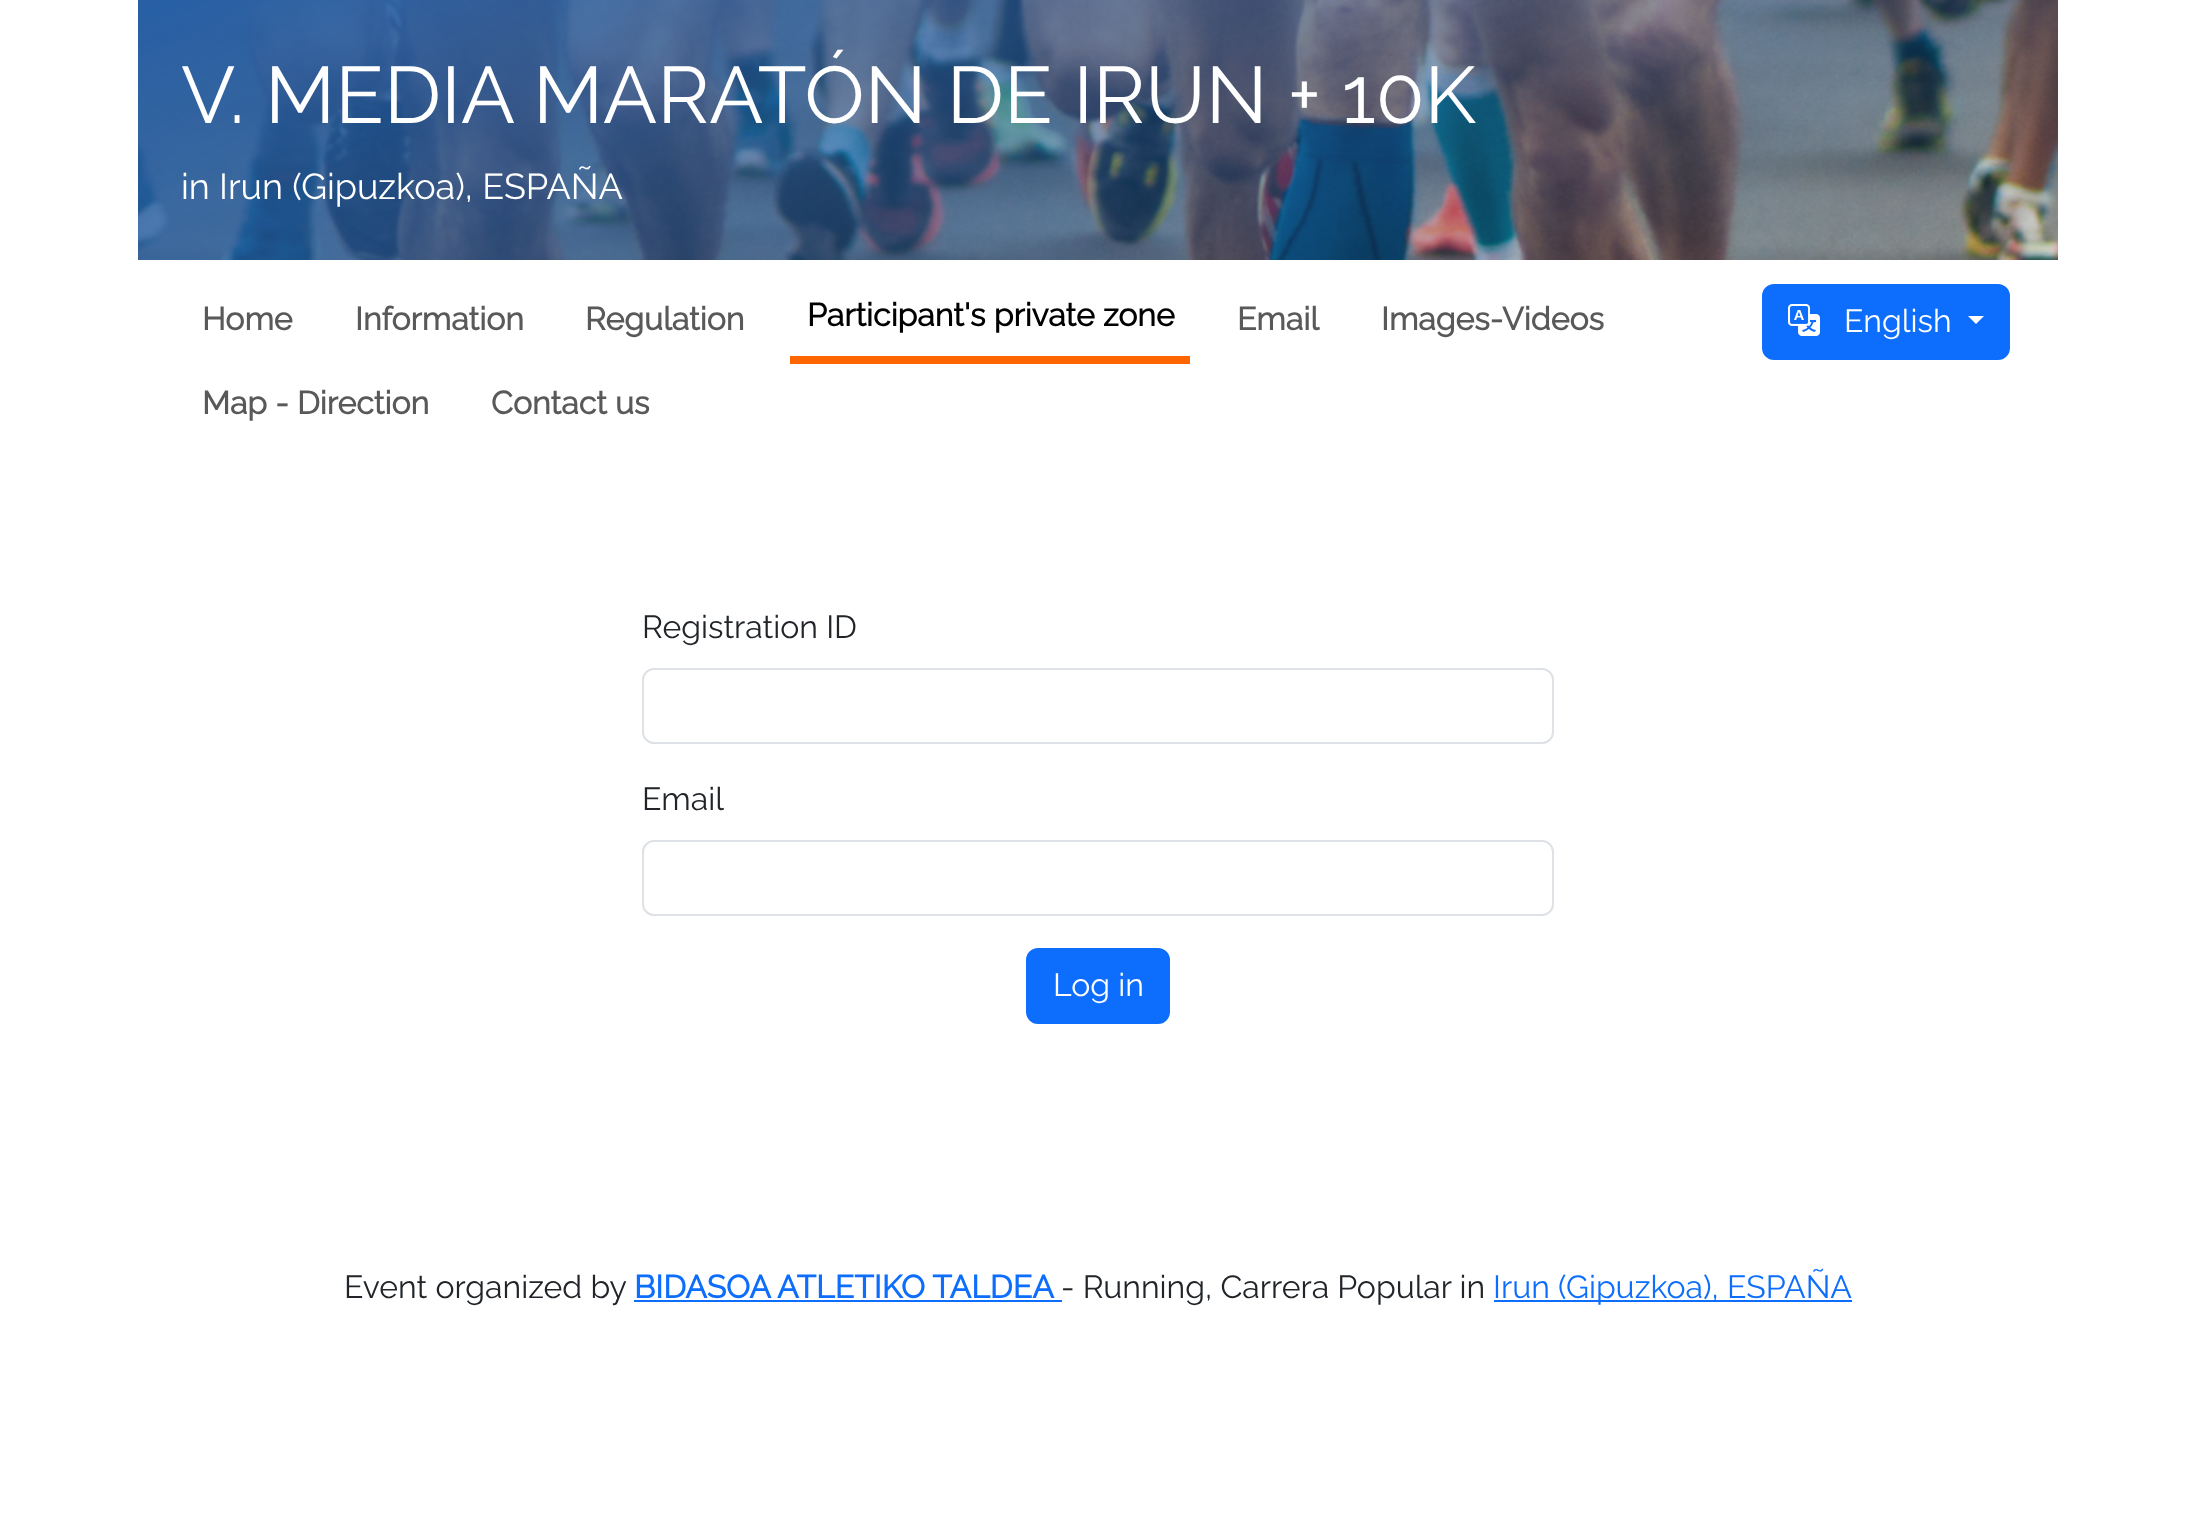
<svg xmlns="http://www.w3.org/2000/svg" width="2195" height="1521">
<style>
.a{font:100 80px Raleway;fill:#fff}
.b{font:100 36px Raleway;fill:#fff}
.c{font:bold 32px Raleway;fill:#595959}
.d{font:bold 32px Raleway;fill:#000}
.e{font:100 32px Raleway;fill:#fff}
.f{font:100 32px Raleway;fill:#212529}
.g{font:bold 32px Raleway;fill:#0d6efd}
.h{font:100 32px Raleway;fill:#0d6efd}
</style>
<rect width="100%" height="100%" fill="#fff"/>
<image href="1.png" x="138" y="0" width="1920" height="260"/>
<path fill="#f60" d="M790 356h400v8H790z"/>
<rect fill="#0d6efd" stroke="#0d6efd" stroke-width="2" x="1763" y="285" width="246" height="74" rx="11"/>
<image href="2.png" x="1788" y="304" width="32" height="32"/>
<path fill="#fff" d="M1968 316h16l-8 8z"/>
<rect fill="none" stroke="#dee2e6" stroke-width="2" x="643" y="669" width="910" height="74" rx="11"/>
<rect fill="none" stroke="#dee2e6" stroke-width="2" x="643" y="841" width="910" height="74" rx="11"/>
<rect fill="#0d6efd" stroke="#0d6efd" stroke-width="2" x="1027" y="949" width="142" height="74" rx="11"/>
<path fill="#0d6efd" d="M634 1300h428v2H634z"/>
<path fill="#0d6efd" d="M1494 1300h358v2H1494z"/>
<text class="a" x="181" y="123">V. MEDIA MARATÓN DE IRUN + 10K</text>
<text class="b" x="181" y="199">in Irun (Gipuzkoa), ESPAÑA</text>
<text class="c" x="202" y="330">Home</text>
<text class="c" x="355" y="330">Information</text>
<text class="c" x="585" y="330">Regulation</text>
<text class="d" x="807" y="326">Participant's private zone</text>
<text class="c" x="1237" y="330">Email</text>
<text class="c" x="1381" y="330">Images-Videos</text>
<text class="c" x="202" y="414">Map - Direction</text>
<text class="c" x="491" y="414">Contact us</text>
<text class="e" x="1844" y="332">English</text>
<text class="f" x="642" y="638">Registration ID</text>
<text class="f" x="642" y="810">Email</text>
<text class="e" x="1053" y="996">Log in</text>
<text class="f" x="344" y="1298">Event organized by</text>
<text class="g" x="634" y="1298">BIDASOA ATLETIKO TALDEA</text>
<text class="f" x="1061" y="1298">- Running, Carrera Popular in</text>
<text class="h" x="1493" y="1298">Irun (Gipuzkoa), ESPAÑA</text>
</svg>
